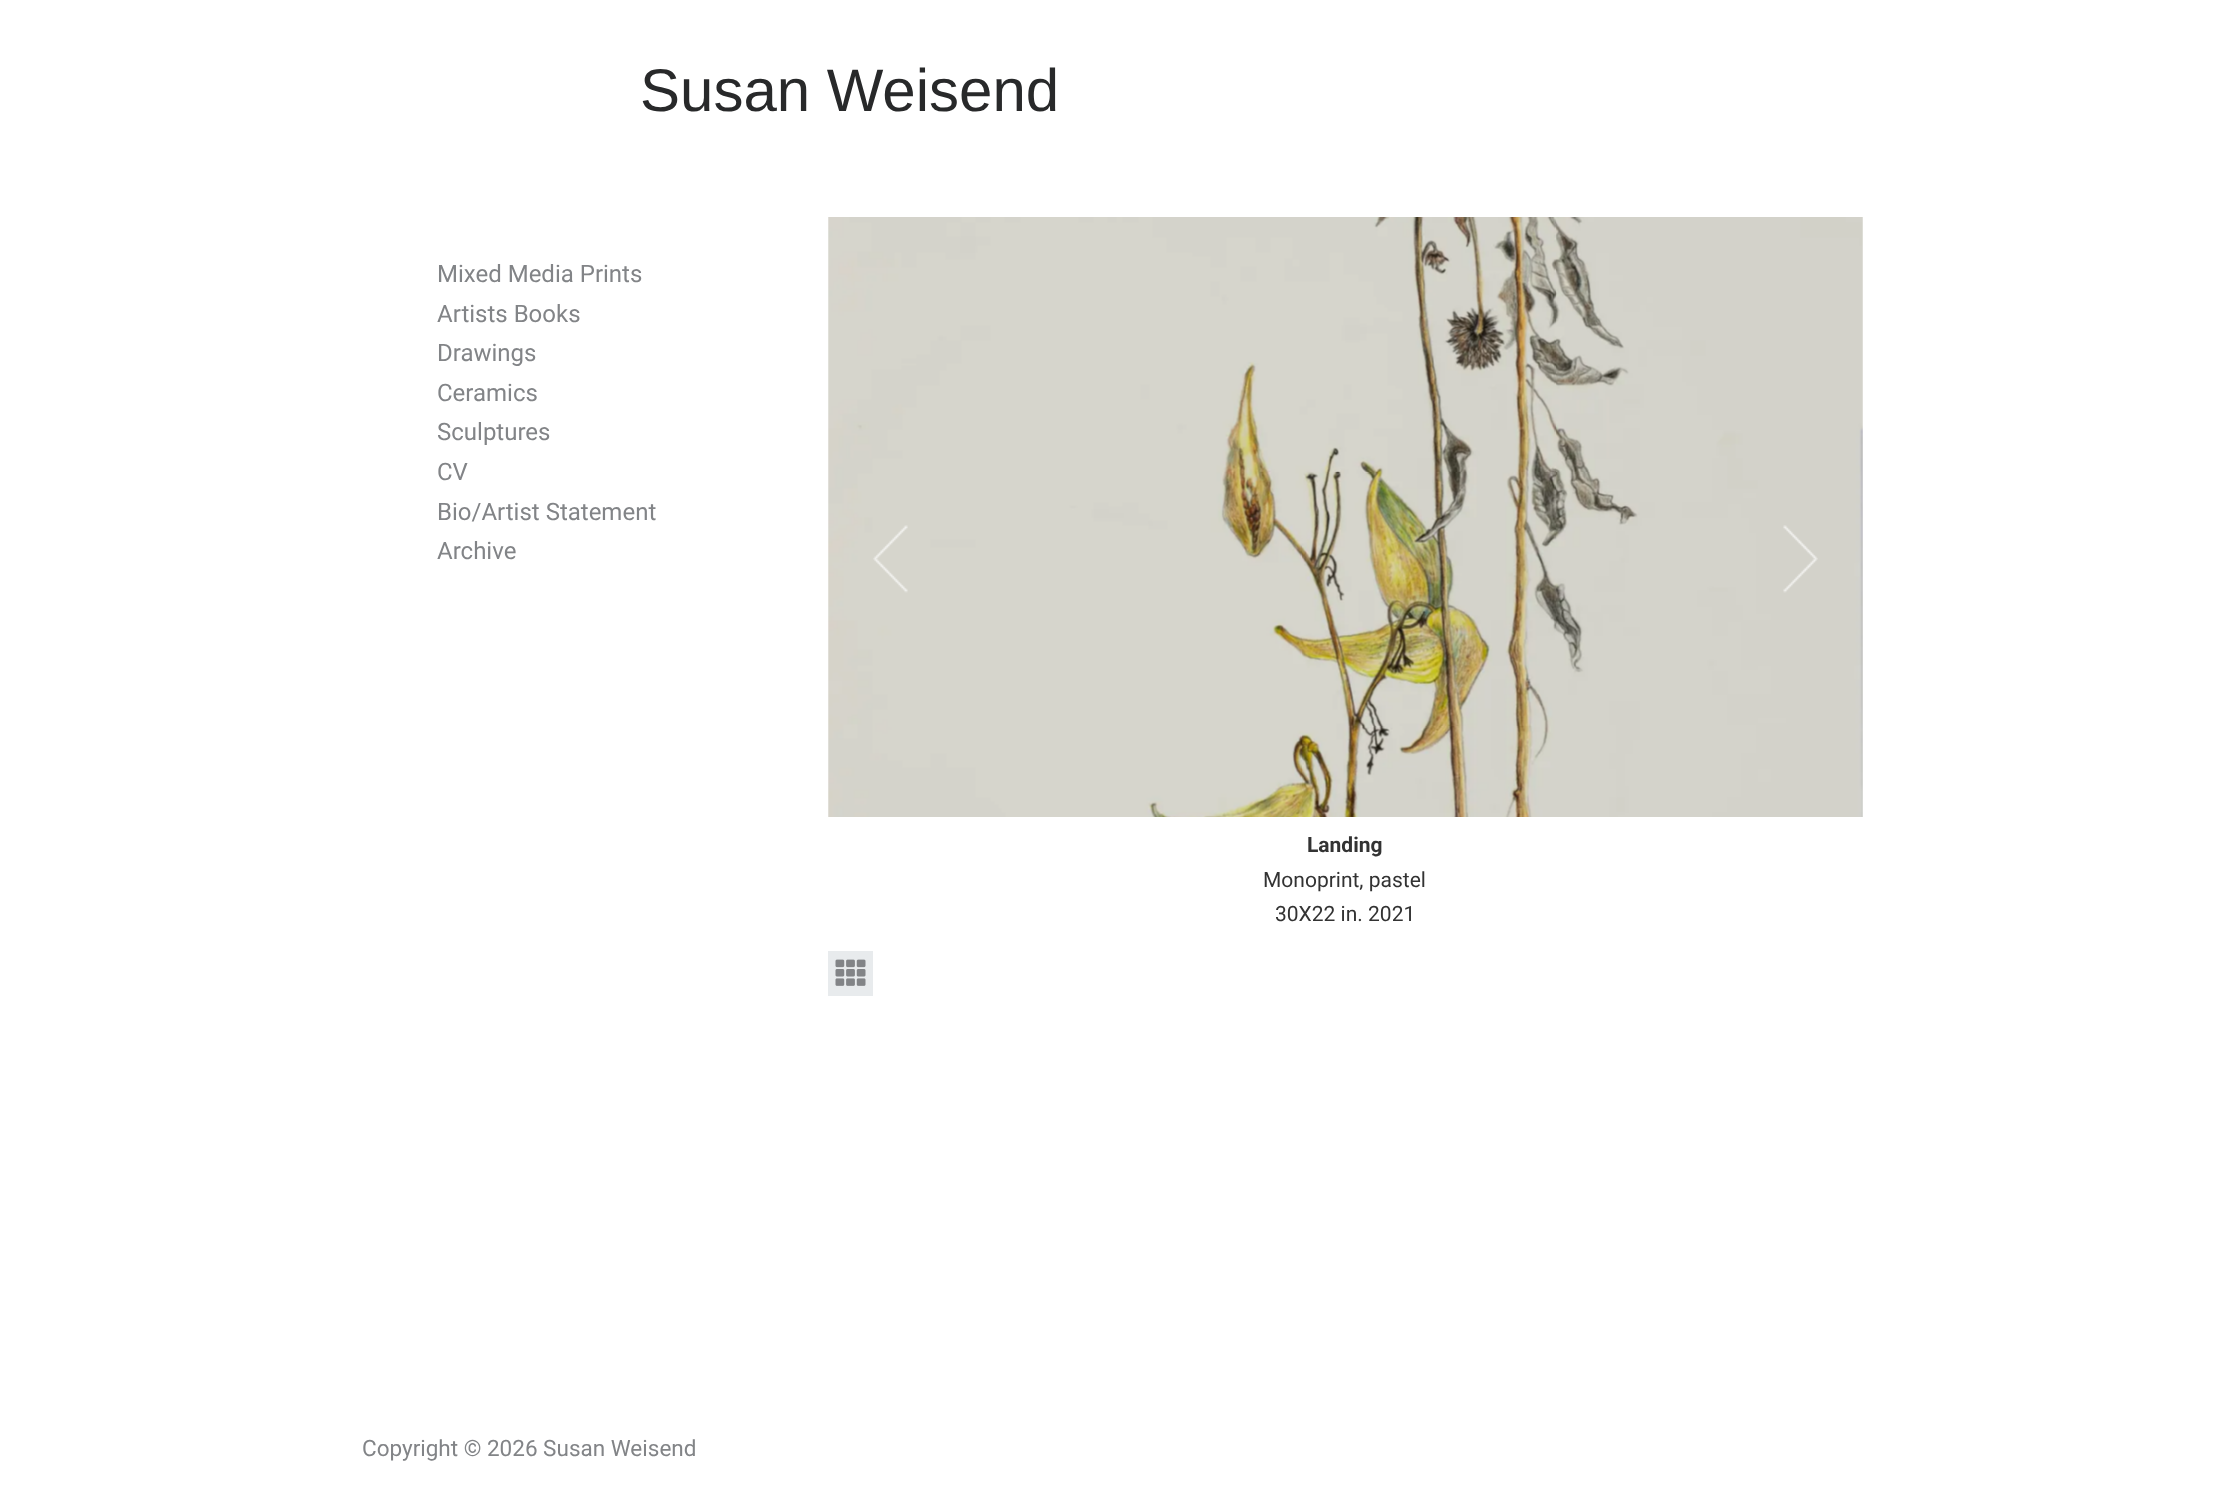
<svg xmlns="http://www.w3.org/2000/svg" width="2224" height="1501">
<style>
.a{font:60px Liberation Sans;fill:#28292a}
.b{font:24px Roboto;fill:#828487}
.c{font:bold 21px Roboto;fill:#333}
.d{font:21px Roboto;fill:#333}
.e{font:22.5px Roboto;fill:#828487}
</style>
<rect width="100%" height="100%" fill="#fff"/>
<image href="3.png" x="828" y="217" width="1035" height="600"/>
<image href="1.png" x="873" y="525" width="35" height="68"/>
<image href="2.png" x="1783" y="525" width="35" height="68"/>
<path fill="#e8ebed" d="M828 951h45v45H828z"/>
<image href="4.png" x="835" y="959" width="31" height="27"/>
<text class="a" x="640" y="111">Susan Weisend</text>
<text class="b" x="437" y="282">Mixed Media Prints</text>
<text class="b" x="437" y="322">Artists Books</text>
<text class="b" x="437" y="361">Drawings</text>
<text class="b" x="437" y="401">Ceramics</text>
<text class="b" x="437" y="440">Sculptures</text>
<text class="b" x="437" y="480">CV</text>
<text class="b" x="437" y="520">Bio/Artist Statement</text>
<text class="b" x="437" y="559">Archive</text>
<text class="c" x="1307" y="852">Landing</text>
<text class="d" x="1263" y="887">Monoprint, pastel</text>
<text class="d" x="1275" y="921">30X22 in. 2021</text>
<text class="e" x="362" y="1456">Copyright © 2026 Susan Weisend</text>
</svg>
